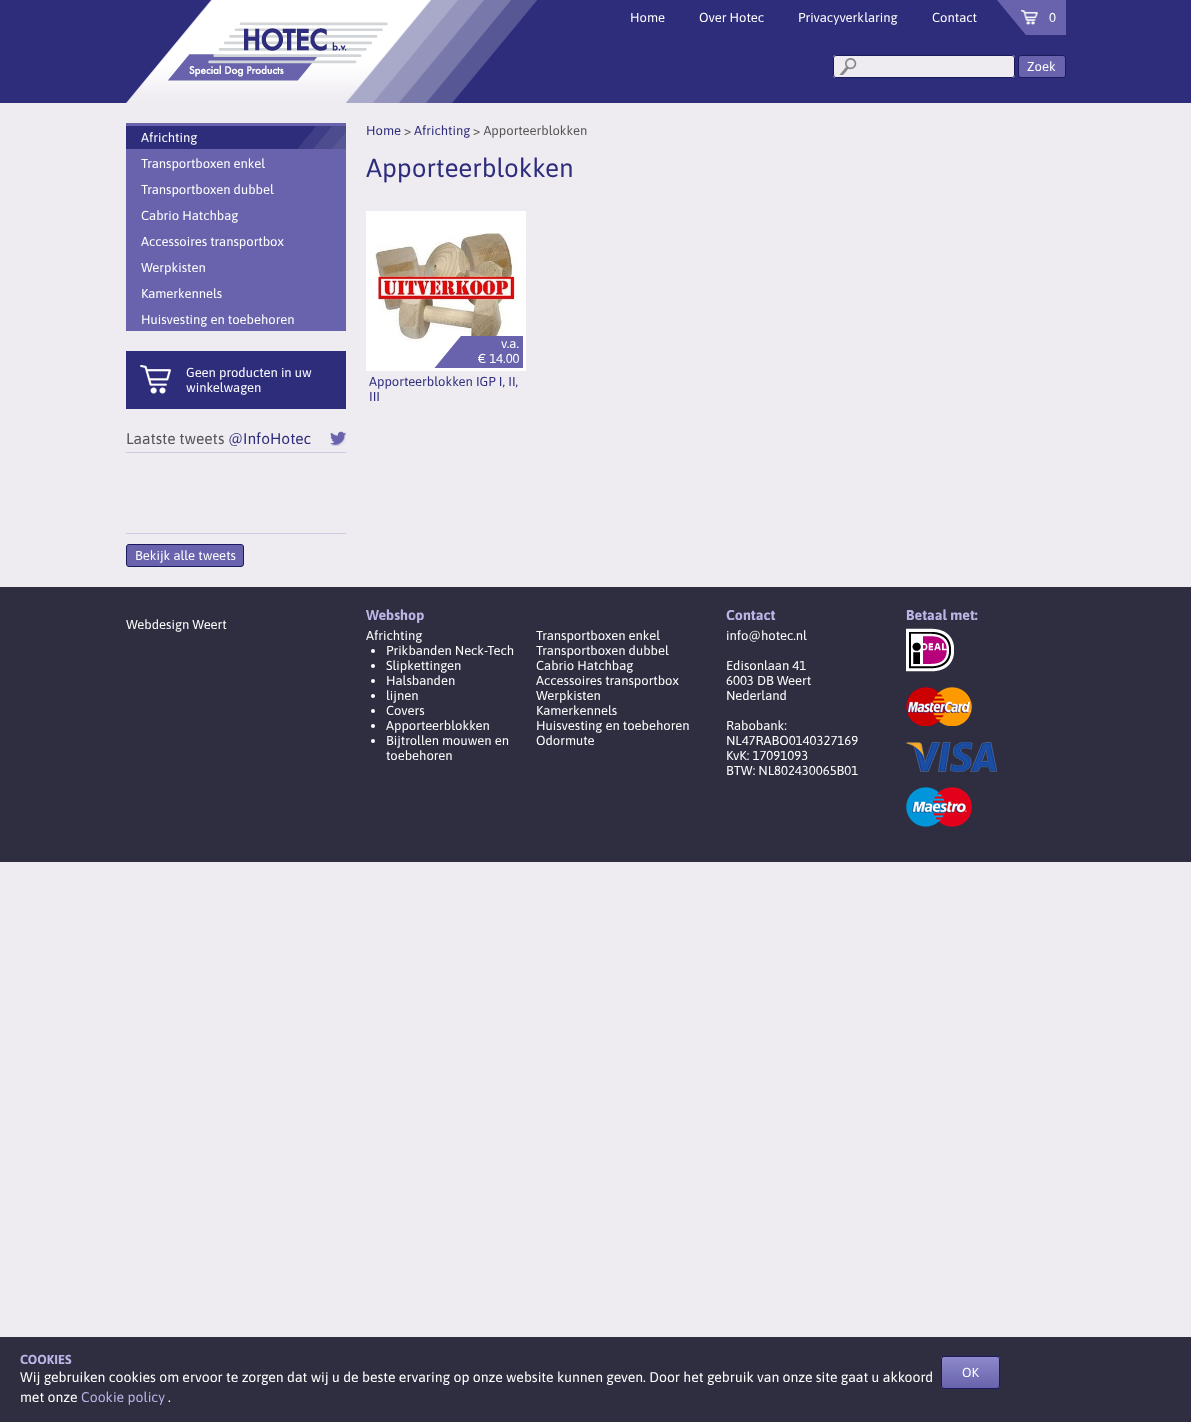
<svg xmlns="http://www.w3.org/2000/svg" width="1191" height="1422">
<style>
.a{font:13px Asap;fill:#fff}
.b{font:15.5px Asap;fill:#555}
.c{font:15.5px Asap;fill:#2e2d7c}
.d{font:13px Asap;fill:#2e2d7c}
.e{font:13px Asap;fill:#555}
.f{font:26px Asap;fill:#2e2d7c}
.g{font:bold 14.25px Asap;fill:#bcb3e6}
.h{font:bold 13px Asap;fill:#bcb3e6}
.i{font:14px Asap;fill:#fff}
.j{font:14px Asap;fill:#bcb3e6}
</style>
<defs>
<clipPath id="clip1"><rect x="941" y="1356" width="59" height="33" rx="3"/></clipPath>
<linearGradient id="g1" gradientUnits="userSpaceOnUse" x1="971" y1="1357" x2="971" y2="1388"><stop offset="0" stop-color="#8d89ca"/><stop offset="1" stop-color="#6863ac"/></linearGradient>
</defs>
<rect width="100%" height="100%" fill="#eeebf1"/>
<path fill="#2e2d7c" d="M0 0h1191v103H0z"/>
<image href="1.png" x="126" y="0" width="411" height="103"/>
<image href="2.png" x="168" y="22" width="220" height="59"/>
<image href="3.png" x="997" y="0" width="69" height="35"/>
<image href="4.png" x="1021" y="10" width="17" height="15"/>
<rect fill="#eeebf1" x="833" y="55" width="182" height="23" rx="3"/>
<image href="5.png" x="839" y="58" width="18" height="17"/>
<rect fill="none" stroke="#1b1a5f" x="833.5" y="55.5" width="181" height="22" rx="2.5"/>
<rect fill="#6863ac" stroke="#1b1a5f" x="1018.5" y="55.5" width="47" height="22" rx="2.5"/>
<path fill="#6863ac" d="M126 123h220v208H126z"/>
<path fill="#2e2d7c" d="M126 126h171v23H126z"/>
<image href="6.png" x="297" y="126" width="49" height="23"/>
<path fill="#2e2d7c" d="M126 351h220v58H126z"/>
<image href="7.png" x="140" y="365" width="31" height="29"/>
<image href="8.png" x="330" y="431" width="16" height="15"/>
<path fill="#ccc9e0" d="M126 452h220v1H126z"/>
<path fill="#ccc9e0" d="M126 533h220v1H126z"/>
<rect fill="#6863ac" stroke="#1b1a5f" x="126.5" y="544.5" width="117" height="22" rx="2.5"/>
<path fill="none" stroke="#fff" stroke-width="3" d="M367.5 212.5h157v157H367.5z"/>
<image href="9.png" x="369" y="214" width="154" height="154"/>
<image href="10.png" x="434" y="336" width="89" height="32"/>
<path fill="#2f2e41" d="M0 587h1191v275H0z"/>
<circle fill="#fff" cx="373" cy="651" r="2"/>
<circle fill="#fff" cx="373" cy="666" r="2"/>
<circle fill="#fff" cx="373" cy="681" r="2"/>
<circle fill="#fff" cx="373" cy="696" r="2"/>
<circle fill="#fff" cx="373" cy="711" r="2"/>
<circle fill="#fff" cx="373" cy="726" r="2"/>
<circle fill="#fff" cx="373" cy="741" r="2"/>
<image href="11.png" x="906" y="628" width="48" height="44"/>
<image href="12.png" x="906" y="687" width="66" height="39"/>
<image href="13.png" x="906" y="742" width="91" height="30"/>
<image href="14.png" x="906" y="787" width="66" height="40"/>
<path fill="#2f2e41" d="M0 1337h1191v85H0z"/>
<g clip-path="url(#clip1)">
<path fill="url(#g1)" d="M941 1357h59v31H941z"/>
</g>
<rect fill="none" stroke="#1b1a5f" x="941.5" y="1356.5" width="58" height="32" rx="2.5"/>
<text class="a" x="630" y="22">Home</text>
<text class="a" x="699" y="22">Over Hotec</text>
<text class="a" x="798" y="22">Privacyverklaring</text>
<text class="a" x="932" y="22">Contact</text>
<text class="a" x="1049" y="22">0</text>
<text class="a" x="1027" y="71">Zoek</text>
<text class="a" x="141" y="142">Africhting</text>
<text class="a" x="141" y="168">Transportboxen enkel</text>
<text class="a" x="141" y="194">Transportboxen dubbel</text>
<text class="a" x="141" y="220">Cabrio Hatchbag</text>
<text class="a" x="141" y="246">Accessoires transportbox</text>
<text class="a" x="141" y="272">Werpkisten</text>
<text class="a" x="141" y="298">Kamerkennels</text>
<text class="a" x="141" y="324">Huisvesting en toebehoren</text>
<text class="a" x="186" y="377">Geen producten in uw</text>
<text class="a" x="186" y="392">winkelwagen</text>
<text class="b" x="126" y="444">Laatste tweets</text>
<text class="c" x="228" y="444">@InfoHotec</text>
<text class="a" x="135" y="560">Bekijk alle tweets</text>
<text class="d" x="366" y="135">Home</text>
<text class="e" x="404" y="135">&gt;</text>
<text class="d" x="414" y="135">Africhting</text>
<text class="e" x="473" y="135">&gt; Apporteerblokken</text>
<text class="f" x="366" y="177">Apporteerblokken</text>
<text class="a" x="501" y="348">v.a.</text>
<text class="a" x="478" y="363">€ 14.00</text>
<text class="d" x="369" y="386">Apporteerblokken IGP I, II,</text>
<text class="d" x="369" y="401">III</text>
<text class="g" x="366" y="620">Webshop</text>
<text class="a" x="366" y="640">Africhting</text>
<text class="a" x="386" y="655">Prikbanden Neck-Tech</text>
<text class="a" x="386" y="670">Slipkettingen</text>
<text class="a" x="386" y="685">Halsbanden</text>
<text class="a" x="386" y="700">lijnen</text>
<text class="a" x="386" y="715">Covers</text>
<text class="a" x="386" y="730">Apporteerblokken</text>
<text class="a" x="386" y="745">Bijtrollen mouwen en</text>
<text class="a" x="386" y="760">toebehoren</text>
<text class="a" x="536" y="640">Transportboxen enkel</text>
<text class="a" x="536" y="655">Transportboxen dubbel</text>
<text class="a" x="536" y="670">Cabrio Hatchbag</text>
<text class="a" x="536" y="685">Accessoires transportbox</text>
<text class="a" x="536" y="700">Werpkisten</text>
<text class="a" x="536" y="715">Kamerkennels</text>
<text class="a" x="536" y="730">Huisvesting en toebehoren</text>
<text class="a" x="536" y="745">Odormute</text>
<text class="g" x="726" y="620">Contact</text>
<text class="a" x="726" y="640">info@hotec.nl</text>
<text class="a" x="726" y="670">Edisonlaan 41</text>
<text class="a" x="726" y="685">6003 DB Weert</text>
<text class="a" x="726" y="700">Nederland</text>
<text class="a" x="726" y="730">Rabobank:</text>
<text class="a" x="726" y="745">NL47RABO0140327169</text>
<text class="a" x="726" y="760">KvK: 17091093</text>
<text class="a" x="726" y="775">BTW: NL802430065B01</text>
<text class="g" x="906" y="620">Betaal met:</text>
<text class="a" x="126" y="629">Webdesign Weert</text>
<text class="h" x="20" y="1364">COOKIES</text>
<text class="i" x="20" y="1382">Wij gebruiken cookies om ervoor te zorgen dat wij u de beste ervaring op onze website kunnen geven. Door het gebruik van onze site gaat u akkoord</text>
<text class="i" x="20" y="1402">met onze</text>
<text class="j" x="81" y="1402">Cookie policy</text>
<text class="i" x="168" y="1402">.</text>
<text class="a" x="962" y="1377">OK</text>
</svg>
